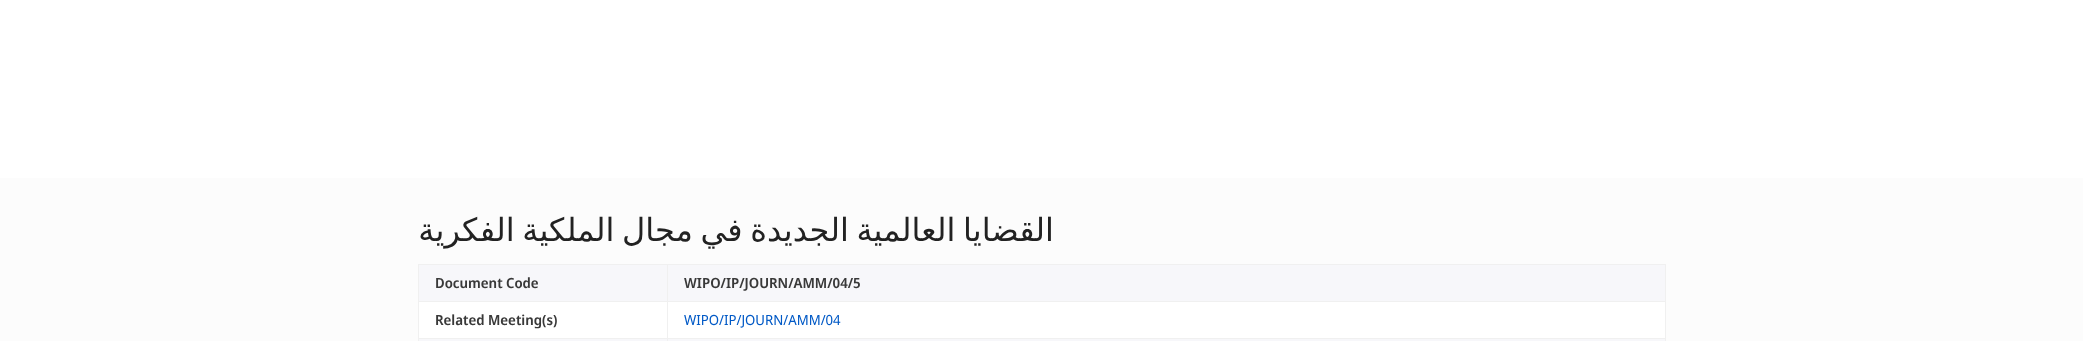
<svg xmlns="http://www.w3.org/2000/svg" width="2083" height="341">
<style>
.a{font:32px DejaVu Sans;direction:rtl;fill:#222}
.b{font:600 14px Noto Sans Display;fill:#393939}
.c{font:14px Noto Sans Display;fill:#0059c6}
</style>
<rect width="100%" height="100%" fill="#fcfcfc"/>
<path fill="#fff" d="M0 0h2083v178H0z"/>
<path fill="#fff" d="M419 302h1246v36H419z"/>
<path fill="#f0f0f0" d="M418 264h1248v1H418z"/>
<path fill="#f0f0f0" d="M1665 264h1v77H1665z"/>
<path fill="#f7f7fa" d="M418 339h1247v2H418z"/>
<path fill="#f0f0f0" d="M418 264h1v77H418z"/>
<path fill="#f7f7fa" d="M419 265h248v36H419z"/>
<path fill="#f7f7fa" d="M668 265h997v36H668z"/>
<path fill="#f0f0f0" d="M418 301h1248v1H418z"/>
<path fill="#f0f0f0" d="M418 338h1248v1H418z"/>
<path fill="#f0f0f0" d="M667 338h1v3H667z"/>
<path fill="#f0f0f0" d="M667 264h1v75H667z"/>
<text class="a" x="1054" y="241" word-spacing="-2.5">القضايا العالمية الجديدة في مجال الملكية الفكرية</text>
<text class="b" x="435" y="288">Document Code</text>
<text class="b" x="684" y="288">WIPO/IP/JOURN/AMM/04/5</text>
<text class="b" x="435" y="325">Related Meeting(s)</text>
<text class="c" x="684" y="325">WIPO/IP/JOURN/AMM/04</text>
</svg>
